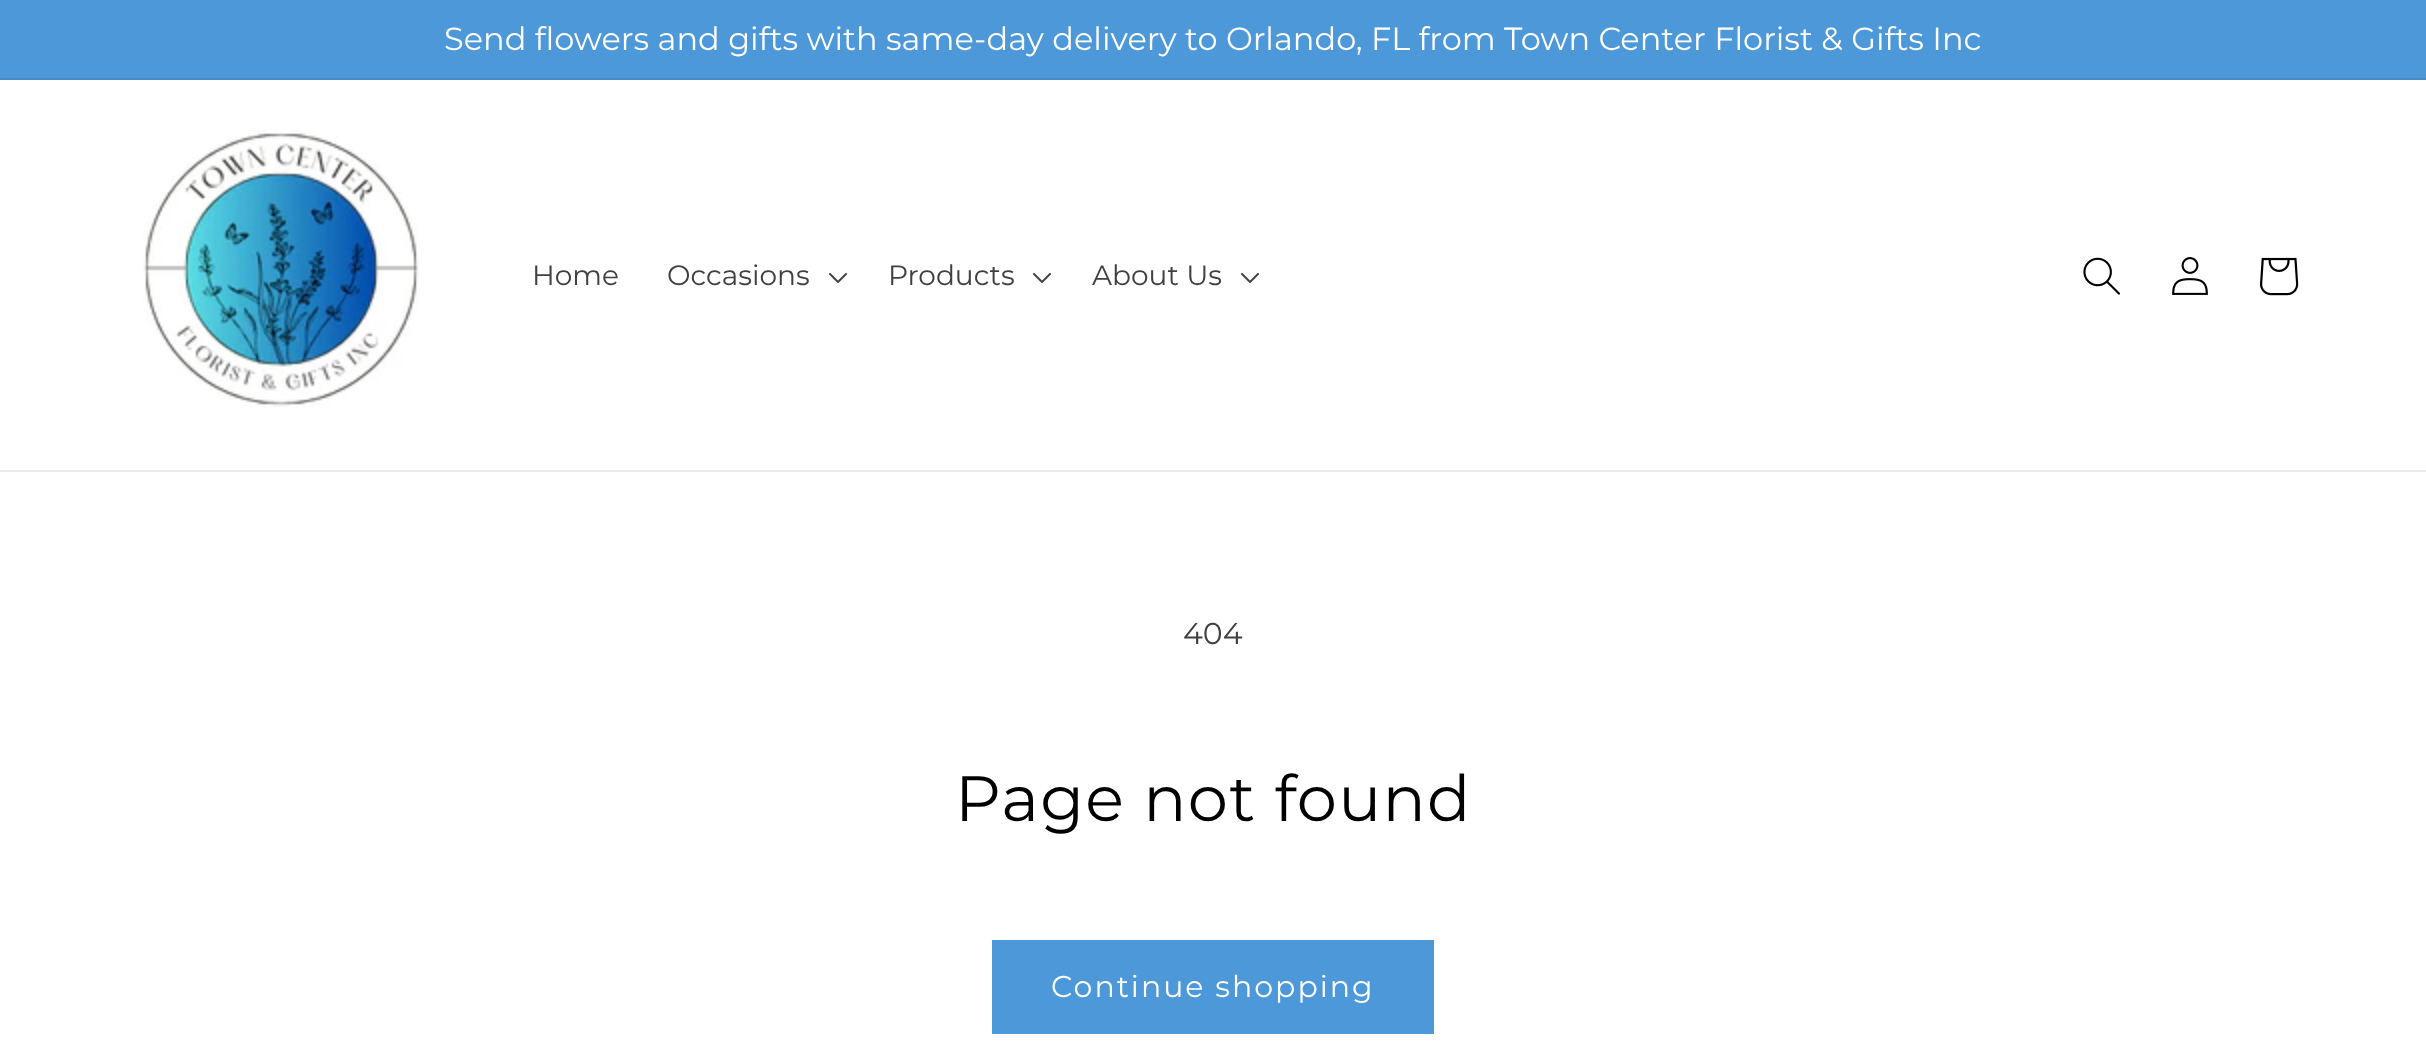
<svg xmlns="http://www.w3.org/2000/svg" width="2426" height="1055">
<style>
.a{font:32px Montserrat;fill:#fff}
.b{font:28px Montserrat;fill:#404040}
.c{font:30px Montserrat;fill:#404040}
.d{font:64px Montserrat;letter-spacing:1.25px;fill:#000}
.e{font:30px Montserrat;letter-spacing:2px;fill:#fff}
</style>
<rect width="100%" height="100%" fill="#fff"/>
<path fill="#4d98d8" d="M0 0h2426v78H0z"/>
<path fill="#478cc7" d="M0 78h2426v2H0z"/>
<path fill="#ebebeb" d="M0 470h2426v2H0z"/>
<image href="1.png" x="143" y="130" width="276" height="278"/>
<image href="2.png" x="829" y="273" width="18" height="10"/>
<image href="2.png" x="1033" y="273" width="18" height="10"/>
<image href="2.png" x="1241" y="273" width="18" height="10"/>
<image href="3.png" x="2083" y="257" width="37" height="38"/>
<image href="4.png" x="2172" y="257" width="36" height="38"/>
<image href="5.png" x="2260" y="257" width="39" height="39"/>
<path fill="#4d98d8" d="M992 940h442v94H992z"/>
<text class="a" x="444" y="50">Send flowers and gifts with same-day delivery to Orlando, FL from Town Center Florist &amp; Gifts Inc</text>
<text class="b" x="532" y="285">Home</text>
<text class="b" x="667" y="285">Occasions</text>
<text class="b" x="888" y="285">Products</text>
<text class="b" x="1092" y="285">About Us</text>
<text class="c" x="1183" y="644">404</text>
<text class="d" x="955" y="821">Page not found</text>
<text class="e" x="1051" y="997">Continue shopping</text>
</svg>
